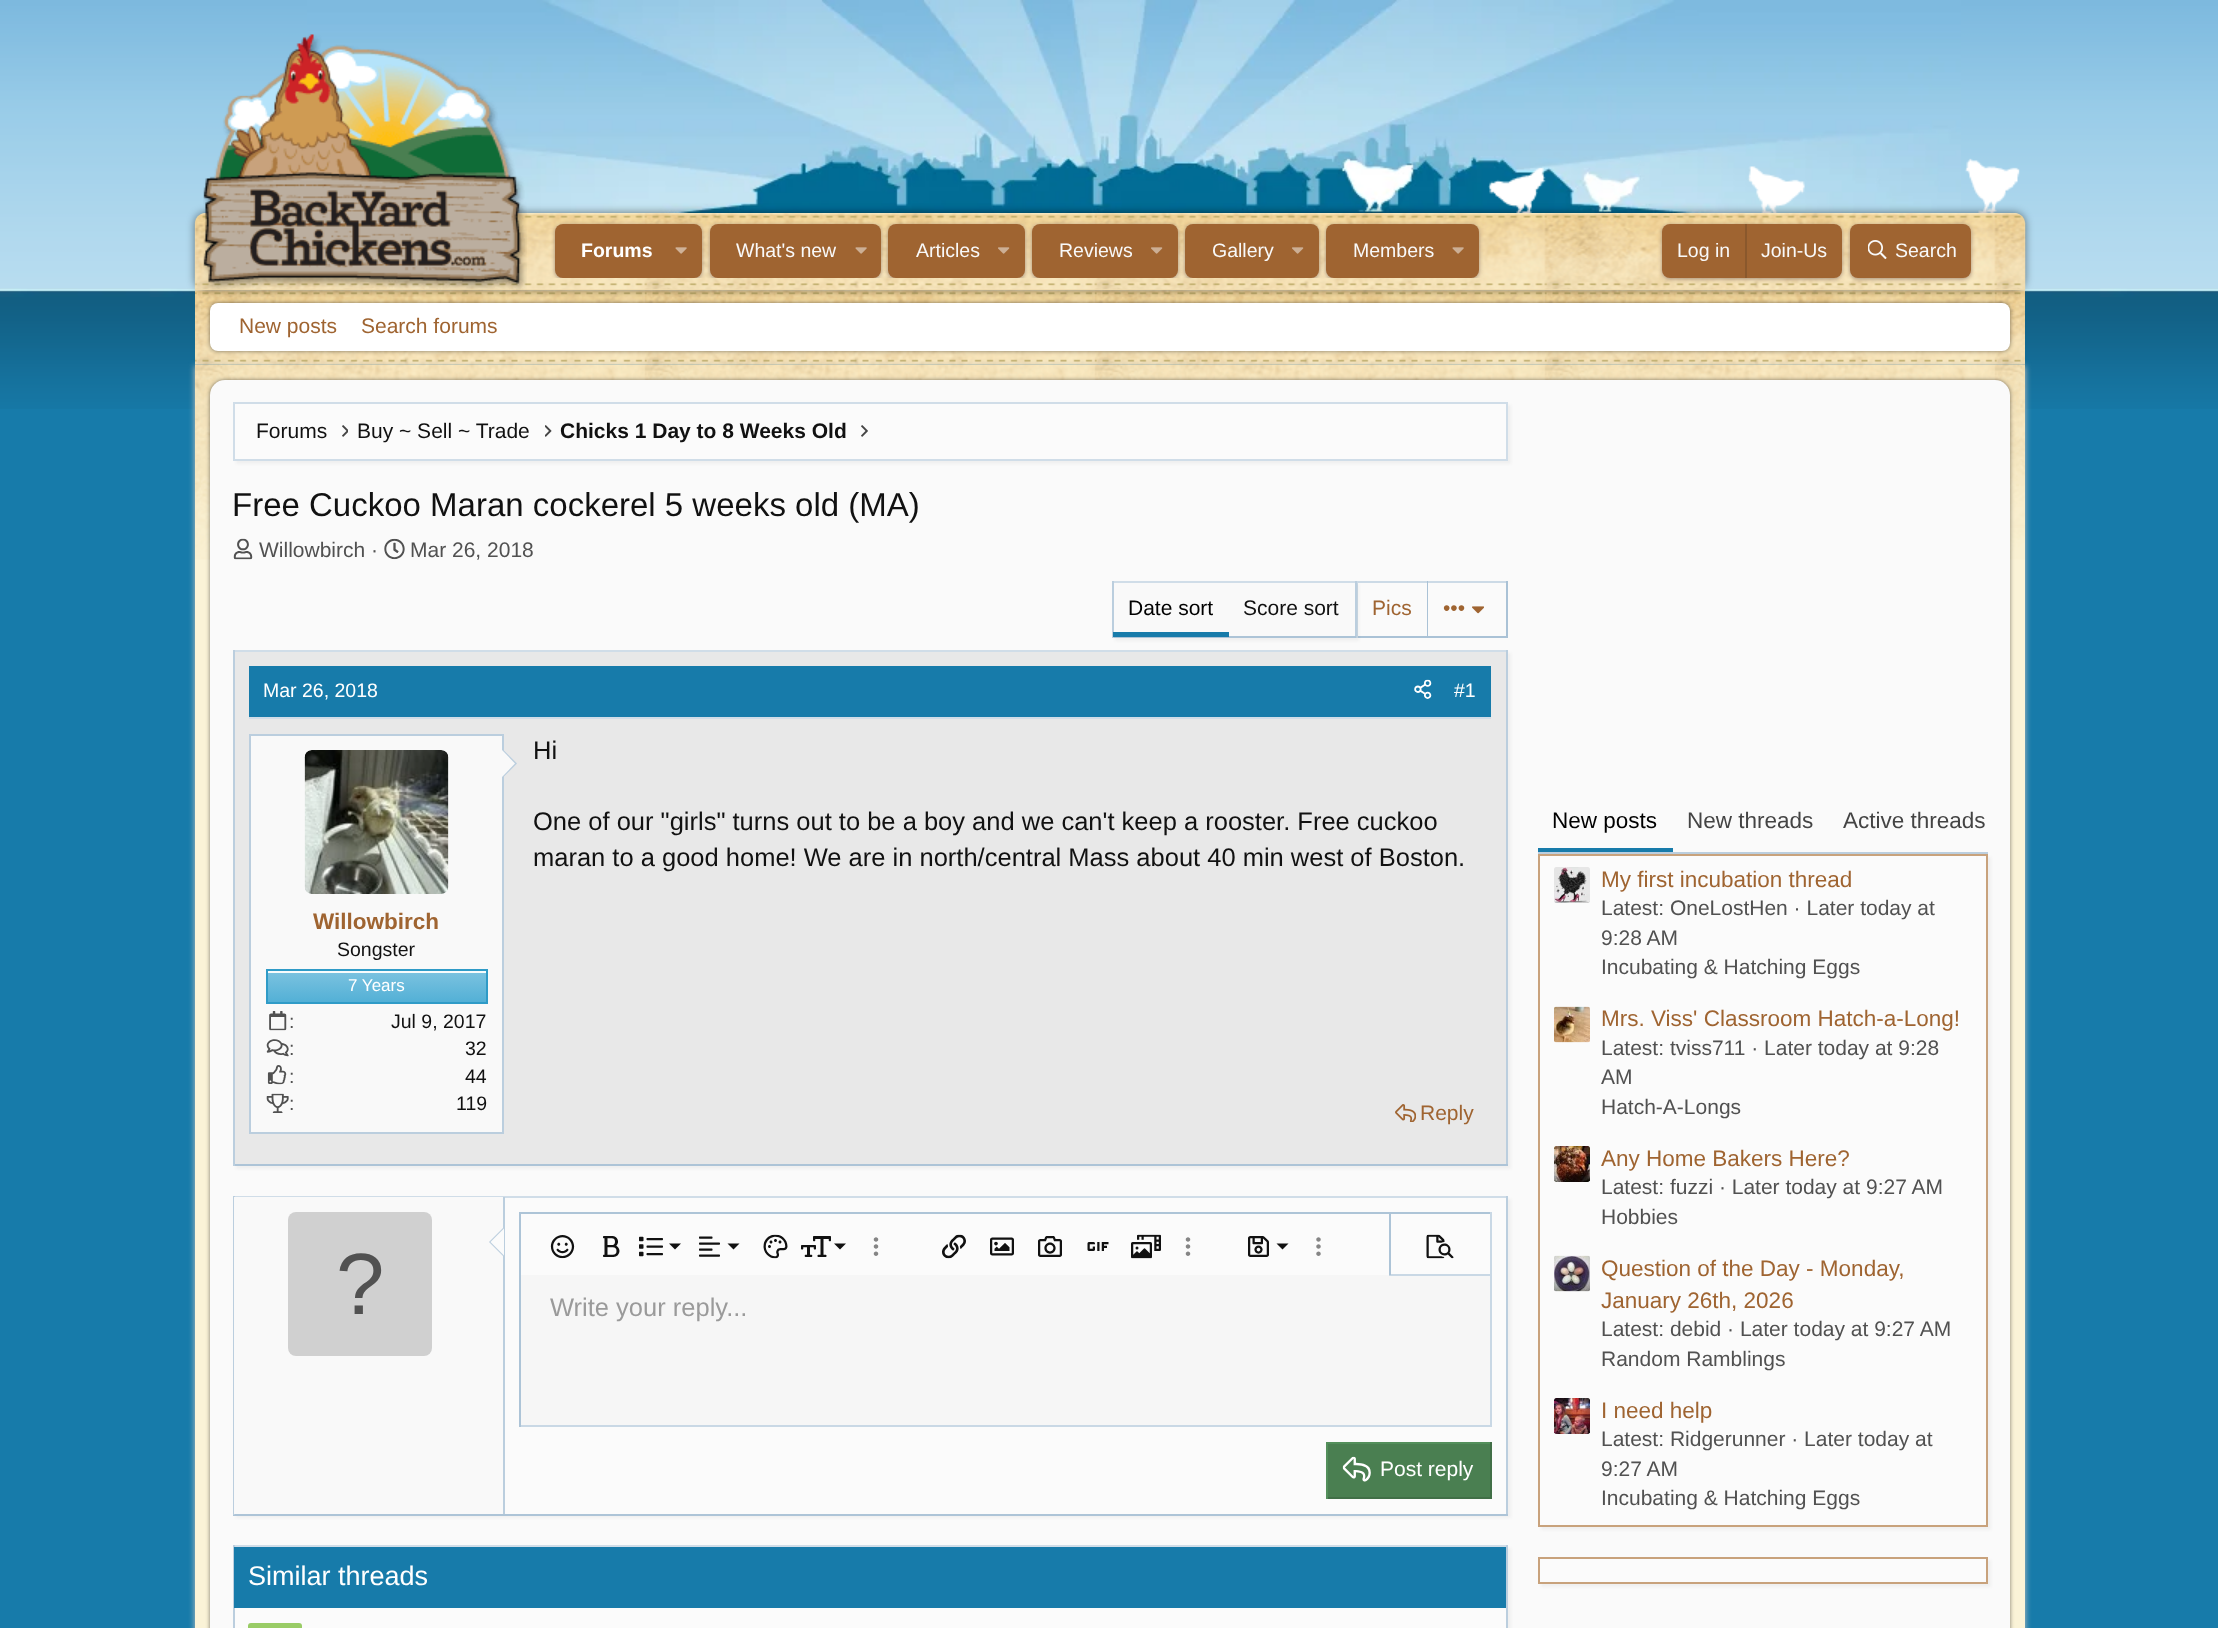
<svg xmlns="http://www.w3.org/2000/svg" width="2218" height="1628">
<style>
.a{font:bold 19.5px Liberation Sans;fill:#fff}
.b{font:19.5px Liberation Sans;fill:#f9f9f9}
.c{font:21px Liberation Sans;fill:#9f6431}
.d{font:21px Liberation Sans;fill:#111}
.e{font:bold 21px Liberation Sans;fill:#111}
.f{font:33px Liberation Sans;fill:#111}
.g{font:21px Liberation Sans;fill:#515151}
.h{font:21px Liberation Sans;fill:#000}
.i{font:19.5px Liberation Sans;fill:#fff}
.j{font:bold 22.5px Liberation Sans;fill:#9f6431}
.k{font:19.5px Liberation Sans;fill:#111}
.l{font:17px Liberation Sans;fill:#fff}
.m{font:19.5px Liberation Sans;fill:#515151}
.n{font:25.5px Liberation Sans;fill:#111}
.o{font:87px Liberation Sans;fill:#515151}
.p{font:25.5px Liberation Sans;fill:#9a9a9a}
.q{font:21px Liberation Sans;fill:#fff}
.r{font:27px Liberation Sans;fill:#fff}
.s{font:22.5px Liberation Sans;fill:#000}
.t{font:22.5px Liberation Sans;fill:#444}
.u{font:22.5px Liberation Sans;fill:#9f6431}
</style>
<defs>
<clipPath id="clip1"><path d="M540 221h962v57H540z"/></clipPath>
<linearGradient id="g1" gradientUnits="userSpaceOnUse" x1="377" y1="971" x2="377" y2="1002"><stop offset="0" stop-color="#7cc3e0"/><stop offset="1" stop-color="#53b0d6"/></linearGradient>
</defs>
<rect width="100%" height="100%" fill="#177baa"/>
<image href="1.png" x="0" y="0" width="2218" height="409"/>
<image href="2.png" x="0" y="288" width="2218" height="9"/>
<image href="3.png" x="307" y="0" width="1654" height="213"/>
<image href="4.png" x="1488" y="158" width="532" height="55"/>
<image href="11.png" x="195" y="290" width="1830" height="75"/>
<rect fill="#00000080" filter="blur(2px)" x="210" y="303" width="1800" height="48" rx="8"/>
<rect fill="#fff" x="210" y="303" width="1800" height="48" rx="8"/>
<rect fill="#00000080" filter="blur(4.5px)" x="195" y="213" width="1830" height="77" rx="11"/>
<path fill="#efdaac" d="M206 213h1808c6 0 11 5 11 11v66h-1830v-66c0-6 5-11 11-11z"/>
<image href="6.png" x="194" y="213" width="1832" height="77"/>
<image href="5.png" x="203" y="34" width="324" height="257"/>
<g clip-path="url(#clip1)">
<rect fill="#a58d78" filter="blur(2px)" x="555" y="225" width="147" height="54" rx="8"/>
</g>
<rect fill="#9f6431" x="555" y="224" width="147" height="54" rx="8"/>
<image href="7.png" x="675" y="247" width="12" height="7"/>
<g clip-path="url(#clip1)">
<rect fill="#a58d78" filter="blur(2px)" x="710" y="225" width="171" height="54" rx="8"/>
</g>
<rect fill="#9f6431" x="710" y="224" width="171" height="54" rx="8"/>
<image href="8.png" x="855" y="247" width="12" height="7"/>
<g clip-path="url(#clip1)">
<rect fill="#a58d78" filter="blur(2px)" x="888" y="225" width="137" height="54" rx="8"/>
</g>
<rect fill="#9f6431" x="888" y="224" width="137" height="54" rx="8"/>
<image href="9.png" x="998" y="247" width="12" height="7"/>
<g clip-path="url(#clip1)">
<rect fill="#a58d78" filter="blur(2px)" x="1032" y="225" width="146" height="54" rx="8"/>
</g>
<rect fill="#9f6431" x="1032" y="224" width="146" height="54" rx="8"/>
<image href="9.png" x="1151" y="247" width="12" height="7"/>
<g clip-path="url(#clip1)">
<rect fill="#a58d78" filter="blur(2px)" x="1185" y="225" width="134" height="54" rx="8"/>
</g>
<rect fill="#9f6431" x="1185" y="224" width="134" height="54" rx="8"/>
<image href="9.png" x="1292" y="247" width="12" height="7"/>
<g clip-path="url(#clip1)">
<rect fill="#a58d78" filter="blur(2px)" x="1326" y="225" width="153" height="54" rx="8"/>
</g>
<rect fill="#9f6431" x="1326" y="224" width="153" height="54" rx="8"/>
<image href="8.png" x="1452" y="247" width="12" height="7"/>
<rect fill="#a58d78" filter="blur(2px)" x="1662" y="225" width="180" height="54" rx="8"/>
<rect fill="#9f6431" x="1662" y="224" width="180" height="54" rx="8"/>
<path fill="#8a582c" d="M1745 224h2v54H1745z"/>
<rect fill="#a58d78" filter="blur(2px)" x="1850" y="225" width="121" height="54" rx="8"/>
<rect fill="#9f6431" x="1850" y="224" width="121" height="54" rx="8"/>
<image href="10.png" x="1868" y="240" width="19" height="20"/>
<path fill="#c2c2c2" filter="blur(3px)" d="M195 366h1830v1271H195z"/>
<path fill="#faf3d7" d="M195 559h1830v1069H195z"/>
<image href="12.png" x="195" y="364" width="1830" height="196"/>
<rect fill="#00000080" filter="blur(2px)" x="210" y="380" width="1800" height="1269" rx="15"/>
<rect fill="#fafafa" x="210" y="380" width="1800" height="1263" rx="15"/>
<path fill="#0000000a" filter="blur(1.5px)" d="M236 405h1275v59H236z"/>
<path fill="#fbfbfb" stroke="#d0dde8" stroke-width="2" d="M234 403h1273v57H234z"/>
<image href="13.png" x="342" y="425" width="6" height="12"/>
<image href="14.png" x="545" y="425" width="7" height="12"/>
<image href="15.png" x="861" y="425" width="7" height="12"/>
<image href="16.png" x="233" y="538" width="20" height="22"/>
<image href="17.png" x="384" y="538" width="21" height="22"/>
<path fill="#ccdae6" d="M1356 581h152v2H1356z"/>
<path fill="#aac2d6" d="M1427 581h1v57H1427z"/>
<path fill="#aac2d6" d="M1356 636h72v2H1356z"/>
<path fill="#ccdae6" d="M1357 581h1v57H1357z"/>
<path fill="#0000000a" filter="blur(1.5px)" d="M1115 584h244v57H1115z"/>
<path fill="#f9f9f9" d="M1114 583h241v53H1114z"/>
<path fill="#d0dde8" d="M1112 581h244v2H1112z"/>
<path fill="#bbcede" d="M1355 581h2v57H1355z"/>
<path fill="#adc4d7" d="M1112 636h244v2H1112z"/>
<path fill="#bbcede" d="M1112 581h2v57H1112z"/>
<path fill="#177baa" d="M1113 632h116v5H1113z"/>
<path fill="#aac2d6" d="M1506 581h2v57H1506z"/>
<path fill="#aac2d6" d="M1428 636h80v2H1428z"/>
<image href="18.png" x="1472" y="606" width="12" height="8"/>
<path fill="#0000000a" filter="blur(1.5px)" d="M236 653h1275v516H236z"/>
<path fill="#e8e8e8" d="M235 652h1271v512H235z"/>
<path fill="#d0dde8" d="M233 650h1275v2H233z"/>
<path fill="#bbcede" d="M1506 650h2v516H1506z"/>
<path fill="#adc4d7" d="M233 1164h1275v2H233z"/>
<path fill="#bbcede" d="M233 650h2v516H233z"/>
<path fill="#177baa" d="M249 666h1242v51H249z"/>
<path fill="#d0dde8" d="M249 717h1242v2H249z"/>
<image href="19.png" x="1414" y="679" width="18" height="20"/>
<path fill="#f9f9f9" stroke="#bbcede" stroke-width="2" d="M250 735h253v398H250z"/>
<image href="20.png" x="304" y="750" width="145" height="144"/>
<path fill="#bbcede" d="M502 778.5v-30l15 15z"/>
<path fill="#f9f9f9" d="M502 777v-27l13 13.5z"/>
<path fill="url(#g1)" d="M268 973h218v29H268z"/>
<path fill="#f8fcfd" d="M267 971h219v2H267z"/>
<path fill="none" stroke="#2f9bc7" stroke-width="2" d="M267 970h220v33H267z"/>
<image href="21.png" x="269" y="1011" width="18" height="20"/>
<image href="22.png" x="266" y="1039" width="23" height="18"/>
<image href="23.png" x="267" y="1065" width="20" height="20"/>
<image href="24.png" x="266" y="1093" width="23" height="20"/>
<image href="25.png" x="1395" y="1104" width="21" height="18"/>
<path fill="#0000000a" filter="blur(1.5px)" d="M236 1199h1275v319H236z"/>
<path fill="#fbfbfb" d="M505 1198h1001v316H505z"/>
<path fill="#d0dde8" d="M233 1196h1275v2H233z"/>
<path fill="#bbcede" d="M1506 1196h2v319H1506z"/>
<path fill="#adc4d7" d="M233 1514h1275v2H233z"/>
<path fill="#bbcede" d="M233 1196h2v319H233z"/>
<path fill="#f9f9f9" d="M234 1197h269v317H234z"/>
<path fill="#bbcede" d="M503 1197h2v317H503z"/>
<path fill="#bbcede" d="M504 1227v30l-15-15z"/>
<path fill="#fbfbfb" d="M504 1228.5v27l-13.5-13.5z"/>
<rect fill="#d0d0d0" x="288" y="1212" width="144" height="144" rx="8"/>
<path fill="#f6f6f6" d="M521 1275h969v150H521z"/>
<path fill="#adc4d7" d="M519 1212h972v2H519z"/>
<path fill="#c9d8e5" d="M1490 1212h2v215H1490z"/>
<path fill="#c9d8e5" d="M519 1425h972v2H519z"/>
<path fill="#adc4d7" d="M519 1212h2v215H519z"/>
<image href="26.png" x="550" y="1235" width="25" height="24"/>
<image href="27.png" x="603" y="1236" width="17" height="21"/>
<image href="28.png" x="639" y="1236" width="24" height="21"/>
<path fill="#111" d="M669 1243.5h12l-6 6z"/>
<image href="29.png" x="699" y="1236" width="21" height="21"/>
<path fill="#111" d="M727.5 1243.5h12l-6 6z"/>
<image href="30.png" x="763" y="1234" width="25" height="25"/>
<image href="31.png" x="801" y="1236" width="30" height="21"/>
<path fill="#111" d="M834 1243.5h12l-6 6z"/>
<image href="32.png" x="873" y="1237" width="6" height="19"/>
<image href="33.png" x="942" y="1234" width="24" height="25"/>
<image href="34.png" x="990" y="1237" width="24" height="19"/>
<image href="35.png" x="1038" y="1236" width="24" height="21"/>
<image href="36.png" x="1087" y="1242" width="22" height="9"/>
<image href="37.png" x="1131" y="1234" width="30" height="25"/>
<image href="32.png" x="1185" y="1237" width="6" height="19"/>
<image href="38.png" x="1248" y="1236" width="21" height="21"/>
<path fill="#111" d="M1276.5 1243.5h12l-6 6z"/>
<image href="39.png" x="1316" y="1237" width="5" height="19"/>
<path fill="#c9d8e5" d="M1389 1274h101v2H1389z"/>
<path fill="#adc4d7" d="M1389 1214h2v61H1389z"/>
<image href="40.png" x="1426" y="1234" width="28" height="25"/>
<path fill="#4a7f51" d="M1328 1444h162v53H1328z"/>
<path fill="#538f5b" d="M1326 1442h165v2H1326z"/>
<path fill="#416f47" d="M1490 1442h2v57H1490z"/>
<path fill="#416f47" d="M1326 1497h165v2H1326z"/>
<path fill="#538f5b" d="M1326 1442h2v57H1326z"/>
<image href="41.png" x="1342" y="1456" width="29" height="26"/>
<path fill="#0000000a" filter="blur(1.5px)" d="M236 1548h1275v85H236z"/>
<path fill="#fbfbfb" d="M235 1608h1271v20H235z"/>
<path fill="#d0dde8" d="M233 1545h1275v2H233z"/>
<path fill="#bbcede" d="M1506 1545h2v83H1506z"/>
<path fill="#bbcede" d="M233 1545h2v83H233z"/>
<path fill="#177baa" d="M234 1547h1272v61H234z"/>
<rect fill="#9c6" x="248" y="1623" width="54" height="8" rx="3"/>
<path fill="#bbcede" d="M1538 852h450v2H1538z"/>
<path fill="#0000000a" filter="blur(1.5px)" d="M1541 857h450v673H1541z"/>
<path fill="#177baa" d="M1538 848h135v4H1538z"/>
<path fill="#fbfbfb" stroke="#c8a27c" stroke-width="2" d="M1539 855h448v671H1539z"/>
<image href="42.png" x="1554" y="867" width="36" height="36"/>
<image href="43.png" x="1554" y="1006" width="36" height="37"/>
<image href="44.png" x="1554" y="1146" width="36" height="36"/>
<image href="45.png" x="1554" y="1255" width="36" height="37"/>
<image href="46.png" x="1554" y="1398" width="36" height="36"/>
<path fill="#0000000a" filter="blur(1.5px)" d="M1541 1560h450v27H1541z"/>
<path fill="#fbfbfb" stroke="#c8a27c" stroke-width="2" d="M1539 1558h448v25H1539z"/>
<text class="a" x="581" y="257">Forums</text>
<text class="b" x="736" y="257">What's new</text>
<text class="b" x="916" y="257">Articles</text>
<text class="b" x="1059" y="257">Reviews</text>
<text class="b" x="1212" y="257">Gallery</text>
<text class="b" x="1353" y="257">Members</text>
<text class="b" x="1677" y="257">Log in</text>
<text class="b" x="1761" y="257">Join-Us</text>
<text class="b" x="1895" y="257">Search</text>
<text class="c" x="239" y="333">New posts</text>
<text class="c" x="361" y="333">Search forums</text>
<text class="d" x="256" y="438">Forums</text>
<text class="d" x="357" y="438">Buy ~ Sell ~ Trade</text>
<text class="e" x="560" y="438">Chicks 1 Day to 8 Weeks Old</text>
<text class="f" x="232" y="516">Free Cuckoo Maran cockerel 5 weeks old (MA)</text>
<text class="g" x="259" y="557">Willowbirch ·</text>
<text class="g" x="410" y="557">Mar 26, 2018</text>
<text class="h" x="1128" y="615">Date sort</text>
<text class="d" x="1243" y="615">Score sort</text>
<text class="c" x="1372" y="615">Pics</text>
<text class="c" x="1443" y="615">•••</text>
<text class="i" x="263" y="697">Mar 26, 2018</text>
<text class="i" x="1454" y="697">#1</text>
<text class="j" x="313" y="929">Willowbirch</text>
<text class="k" x="337" y="956">Songster</text>
<text class="l" x="348" y="991">7 Years</text>
<text class="m" x="289" y="1028">:</text>
<text class="k" x="391" y="1028">Jul 9, 2017</text>
<text class="m" x="289" y="1055">:</text>
<text class="k" x="465" y="1055">32</text>
<text class="m" x="289" y="1083">:</text>
<text class="k" x="465" y="1083">44</text>
<text class="m" x="289" y="1110">:</text>
<text class="k" x="456" y="1110">119</text>
<text class="n" x="533" y="759">Hi</text>
<text class="n" x="533" y="830">One of our "girls" turns out to be a boy and we can't keep a rooster. Free cuckoo</text>
<text class="n" x="533" y="866">maran to a good home! We are in north/central Mass about 40 min west of Boston.</text>
<text class="c" x="1420" y="1120">Reply</text>
<text class="o" x="336" y="1314">?</text>
<text class="p" x="550" y="1316">Write your reply...</text>
<text class="q" x="1380" y="1476">Post reply</text>
<text class="r" x="248" y="1585">Similar threads</text>
<text class="s" x="1552" y="828">New posts</text>
<text class="t" x="1687" y="828">New threads</text>
<text class="t" x="1843" y="828">Active threads</text>
<text class="u" x="1601" y="887">My first incubation thread</text>
<text class="g" x="1601" y="915">Latest: OneLostHen · Later today at</text>
<text class="g" x="1601" y="945">9:28 AM</text>
<text class="g" x="1601" y="974">Incubating &amp; Hatching Eggs</text>
<text class="u" x="1601" y="1026">Mrs. Viss' Classroom Hatch-a-Long!</text>
<text class="g" x="1601" y="1055">Latest: tviss711 · Later today at 9:28</text>
<text class="g" x="1601" y="1084">AM</text>
<text class="g" x="1601" y="1114">Hatch-A-Longs</text>
<text class="u" x="1601" y="1166">Any Home Bakers Here?</text>
<text class="g" x="1601" y="1194">Latest: fuzzi · Later today at 9:27 AM</text>
<text class="g" x="1601" y="1224">Hobbies</text>
<text class="u" x="1601" y="1276">Question of the Day - Monday,</text>
<text class="u" x="1601" y="1308">January 26th, 2026</text>
<text class="g" x="1601" y="1336">Latest: debid · Later today at 9:27 AM</text>
<text class="g" x="1601" y="1366">Random Ramblings</text>
<text class="u" x="1601" y="1418">I need help</text>
<text class="g" x="1601" y="1446">Latest: Ridgerunner · Later today at</text>
<text class="g" x="1601" y="1476">9:27 AM</text>
<text class="g" x="1601" y="1505">Incubating &amp; Hatching Eggs</text>
</svg>
